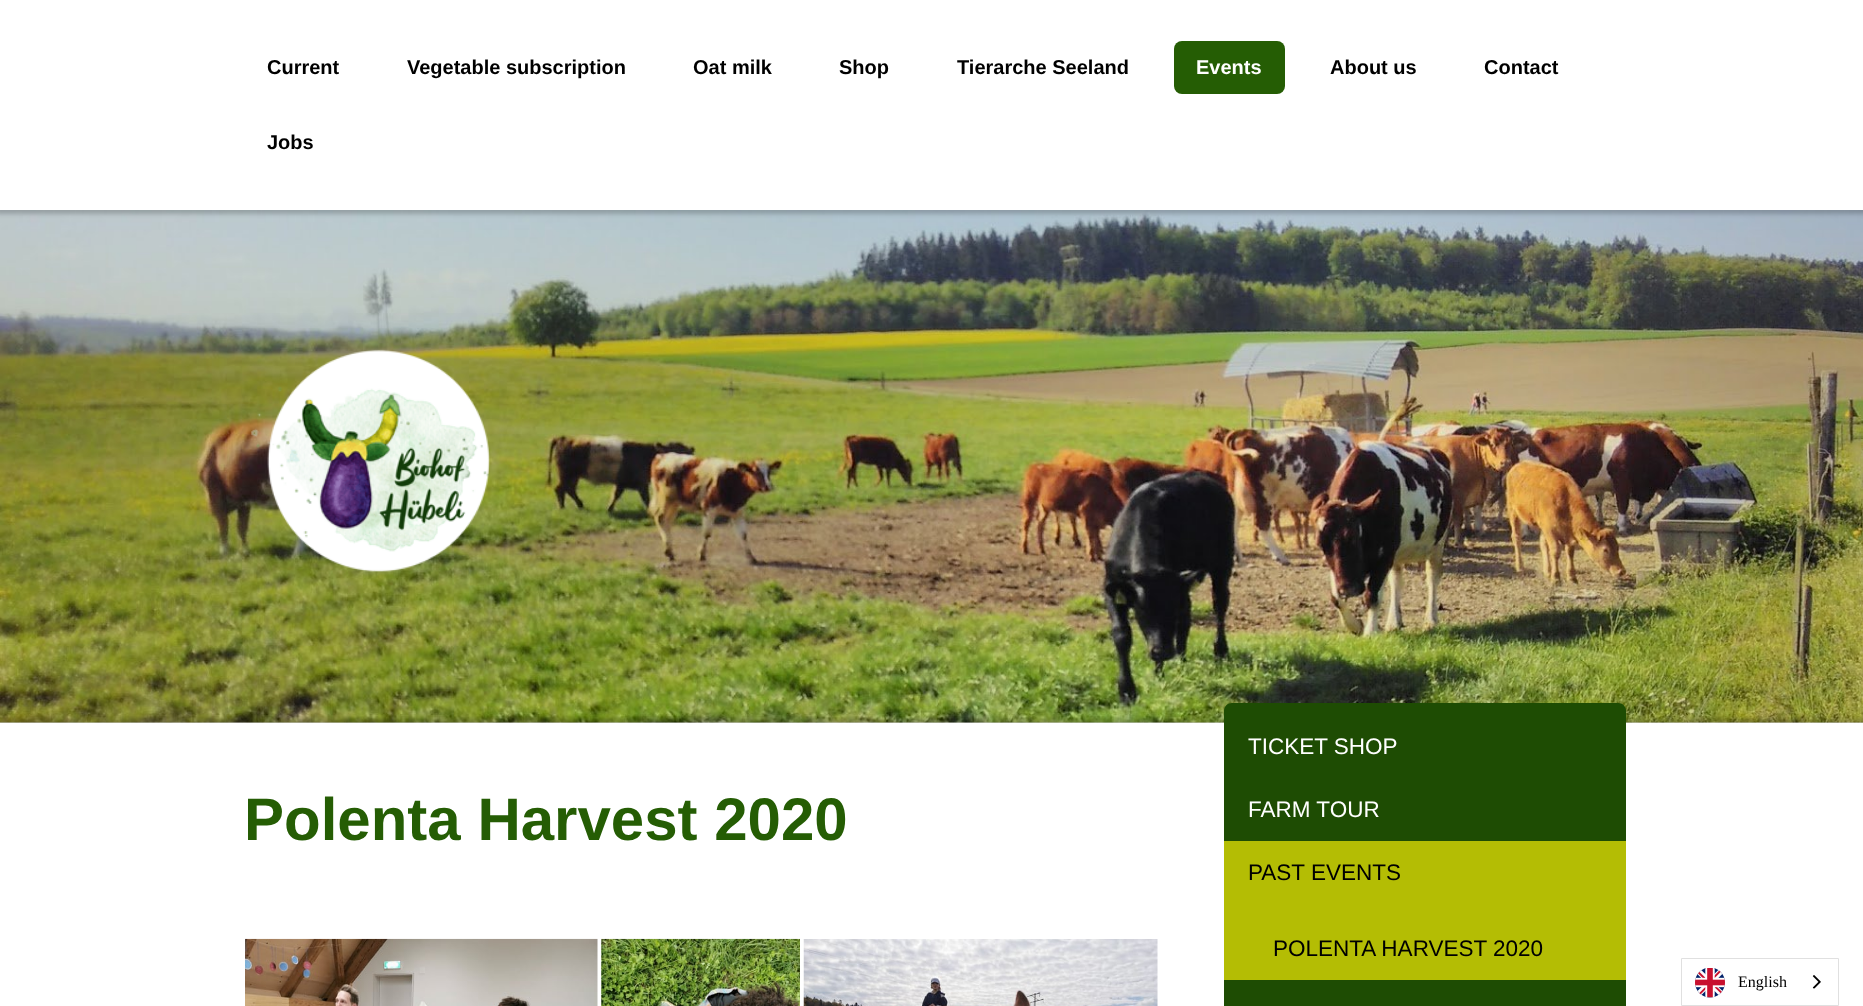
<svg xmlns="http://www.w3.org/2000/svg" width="1863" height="1006">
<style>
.a{font:bold 20px Liberation Sans;fill:#000}
.b{font:bold 20px Liberation Sans;fill:#fff}
.c{font:bold 60px Liberation Sans;fill:#255d04}
.d{font:22.5px Liberation Sans;fill:#fff}
.e{font:22.5px Liberation Sans;fill:#000}
.f{font:16px Liberation Serif;fill:#000}
</style>
<defs>
<clipPath id="clip1"><path d="M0 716h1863v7H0z"/></clipPath>
</defs>
<rect width="100%" height="100%" fill="#fff"/>
<image href="1.png" x="0" y="210" width="1863" height="513"/>
<path fill="#00000033" filter="blur(2px)" d="M-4 -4h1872v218H-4z"/>
<path fill="#fff" d="M0 0h1863v210H0z"/>
<rect fill="#255d04" x="1174" y="41" width="111" height="53" rx="8"/>
<image href="2.png" x="251" y="349" width="239" height="223"/>
<g clip-path="url(#clip1)">
<path fill="#00000033" filter="blur(2px)" d="M-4 719h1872v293H-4z"/>
</g>
<image href="3.png" x="245" y="938" width="353" height="68"/>
<image href="4.png" x="601" y="938" width="199" height="68"/>
<image href="5.png" x="803" y="939" width="355" height="67"/>
<path fill="#1e4c03" d="M1232 703h386c4.5 0 8 3.5 8 8v68h-402v-68c0-4.5 3.5-8 8-8z"/>
<path fill="#1e4c03" d="M1224 779h402v62H1224z"/>
<path fill="#b4bd04" d="M1224 841h402v139H1224z"/>
<path fill="#1e4c03" d="M1224 980h402v26H1224z"/>
<path fill="none" stroke="#e0e0e0" d="M1681.5 958.5h157v47H1681.5z"/>
<image href="6.png" x="1695" y="968" width="30" height="30"/>
<image href="7.png" x="1812" y="975" width="9" height="14"/>
<text class="a" x="267" y="74">Current</text>
<text class="a" x="407" y="74">Vegetable subscription</text>
<text class="a" x="693" y="74">Oat milk</text>
<text class="a" x="839" y="74">Shop</text>
<text class="a" x="957" y="74">Tierarche Seeland</text>
<text class="b" x="1196" y="74">Events</text>
<text class="a" x="1330" y="74">About us</text>
<text class="a" x="1484" y="74">Contact</text>
<text class="a" x="267" y="149">Jobs</text>
<text class="c" x="244" y="840">Polenta Harvest 2020</text>
<text class="d" x="1248" y="754">TICKET SHOP</text>
<text class="d" x="1248" y="817">FARM TOUR</text>
<text class="e" x="1248" y="880">PAST EVENTS</text>
<text class="e" x="1273" y="956">POLENTA HARVEST 2020</text>
<text class="f" x="1738" y="987">English</text>
</svg>
